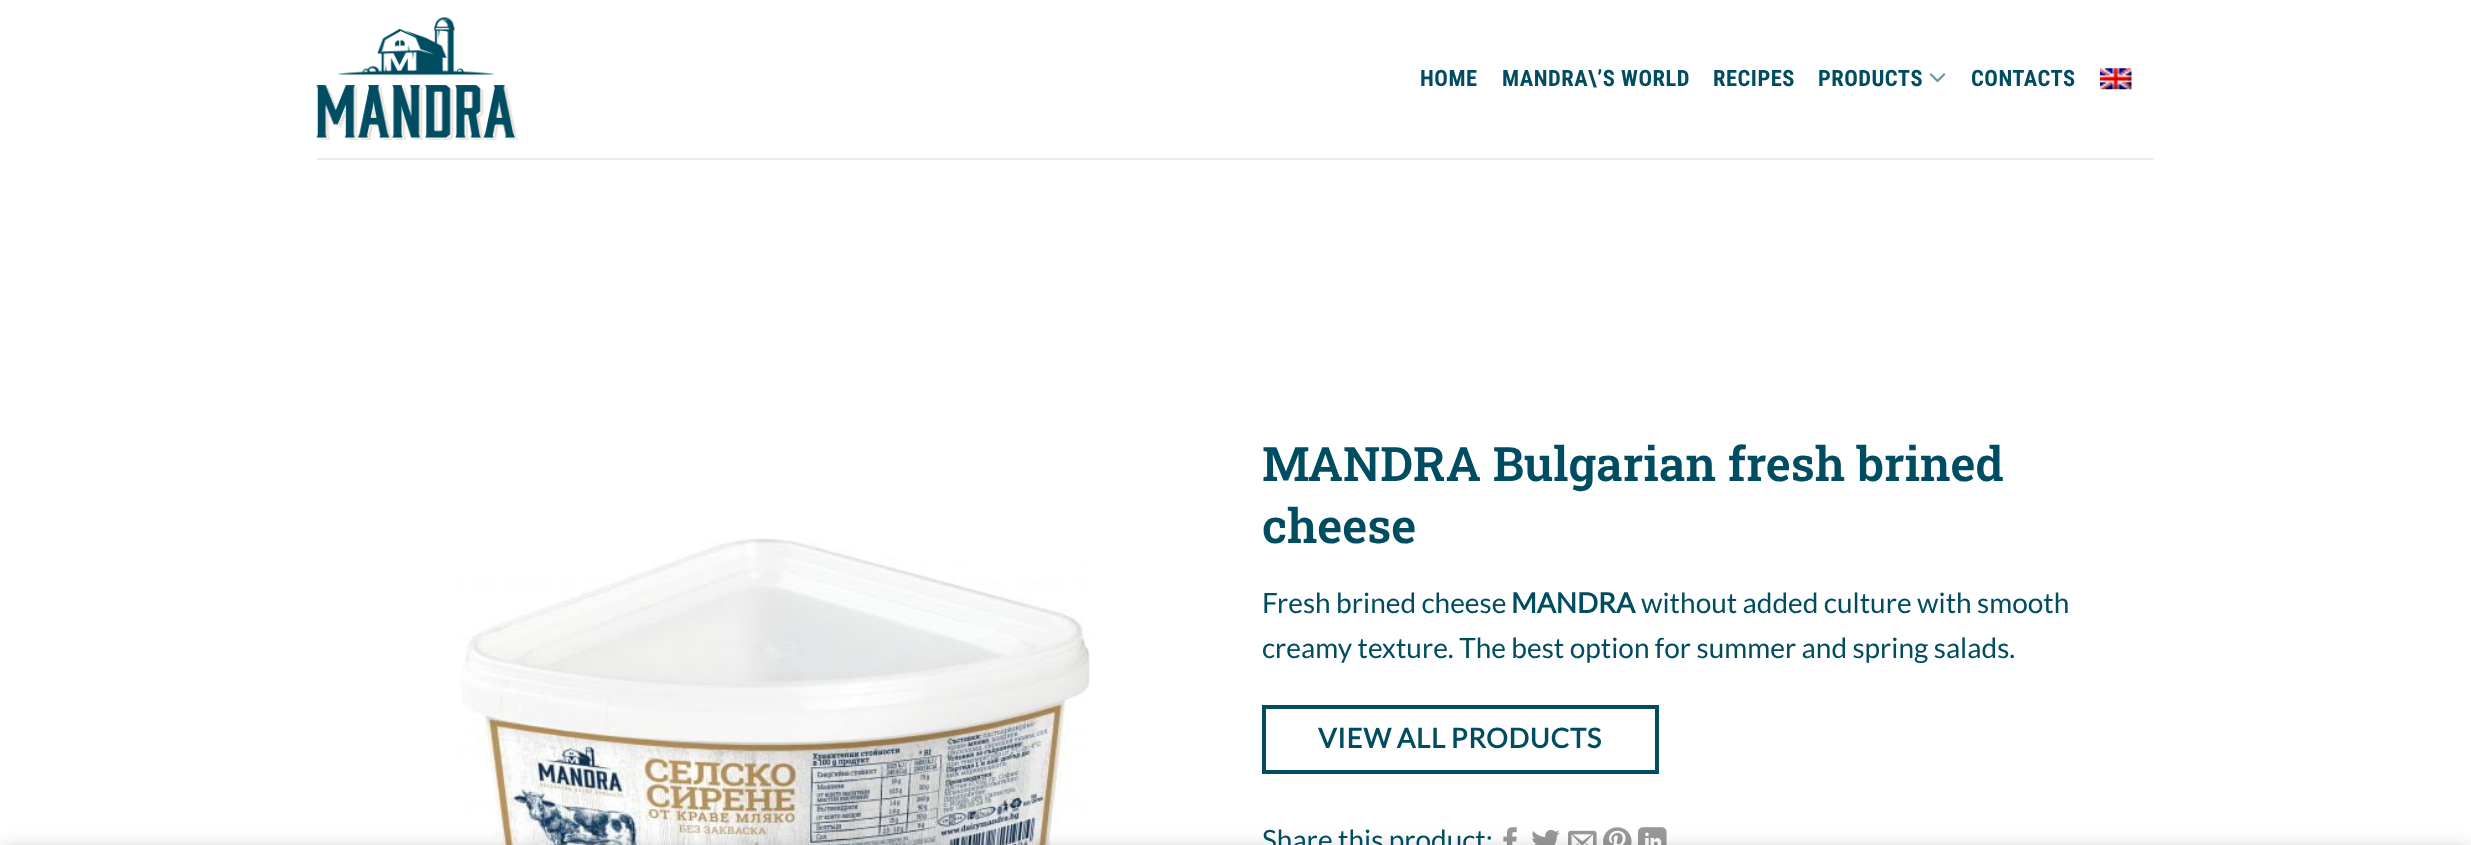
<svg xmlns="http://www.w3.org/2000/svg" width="2471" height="845">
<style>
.a{font:bold 22.5px Roboto Condensed;letter-spacing:0.5px;fill:#004c60}
.b{font:600 47.6px Roboto Slab;fill:#004c60}
.c{font:28px Lato;fill:#004c60}
.d{font:bold 28px Lato;fill:#004c60}
.e{font:bold 27.25px Lato;letter-spacing:0.8px;fill:#004c60}
</style>
<rect width="100%" height="100%" fill="#fff"/>
<image href="1.png" x="316" y="17" width="202" height="123"/>
<image href="2.png" x="1929" y="73" width="17" height="10"/>
<image href="3.png" x="2100" y="68" width="32" height="22"/>
<path fill="#e6edef" d="M317 158h1837v2H317z"/>
<image href="4.png" x="460" y="538" width="630" height="307"/>
<path fill="none" stroke="#004c60" stroke-width="4" d="M1264 707h393v65H1264z"/>
<image href="5.png" x="1503" y="827" width="14" height="18"/>
<image href="6.png" x="1532" y="829" width="28" height="16"/>
<image href="7.png" x="1568" y="830" width="29" height="15"/>
<image href="8.png" x="1603" y="827" width="29" height="18"/>
<image href="9.png" x="1638" y="827" width="29" height="18"/>
<path fill="#00000024" filter="blur(8px)" d="M0 845h2471v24H0z"/>
<text class="a" x="1420" y="86">HOME</text>
<text class="a" x="1502" y="86">MANDRA\’S WORLD</text>
<text class="a" x="1713" y="86">RECIPES</text>
<text class="a" x="1818" y="86">PRODUCTS</text>
<text class="a" x="1971" y="86">CONTACTS</text>
<text class="b" x="1262" y="481">MANDRA Bulgarian fresh brined</text>
<text class="b" x="1262" y="543">cheese</text>
<text class="c" x="1262" y="613">Fresh brined cheese</text>
<text class="d" x="1511" y="613">MANDRA</text>
<text class="c" x="1641" y="613">without added culture with smooth</text>
<text class="c" x="1262" y="658">creamy texture. The best option for summer and spring salads.</text>
<text class="e" x="1318" y="748" word-spacing="-1">VIEW ALL PRODUCTS</text>
<text class="c" x="1262" y="850">Share this product:</text>
</svg>
